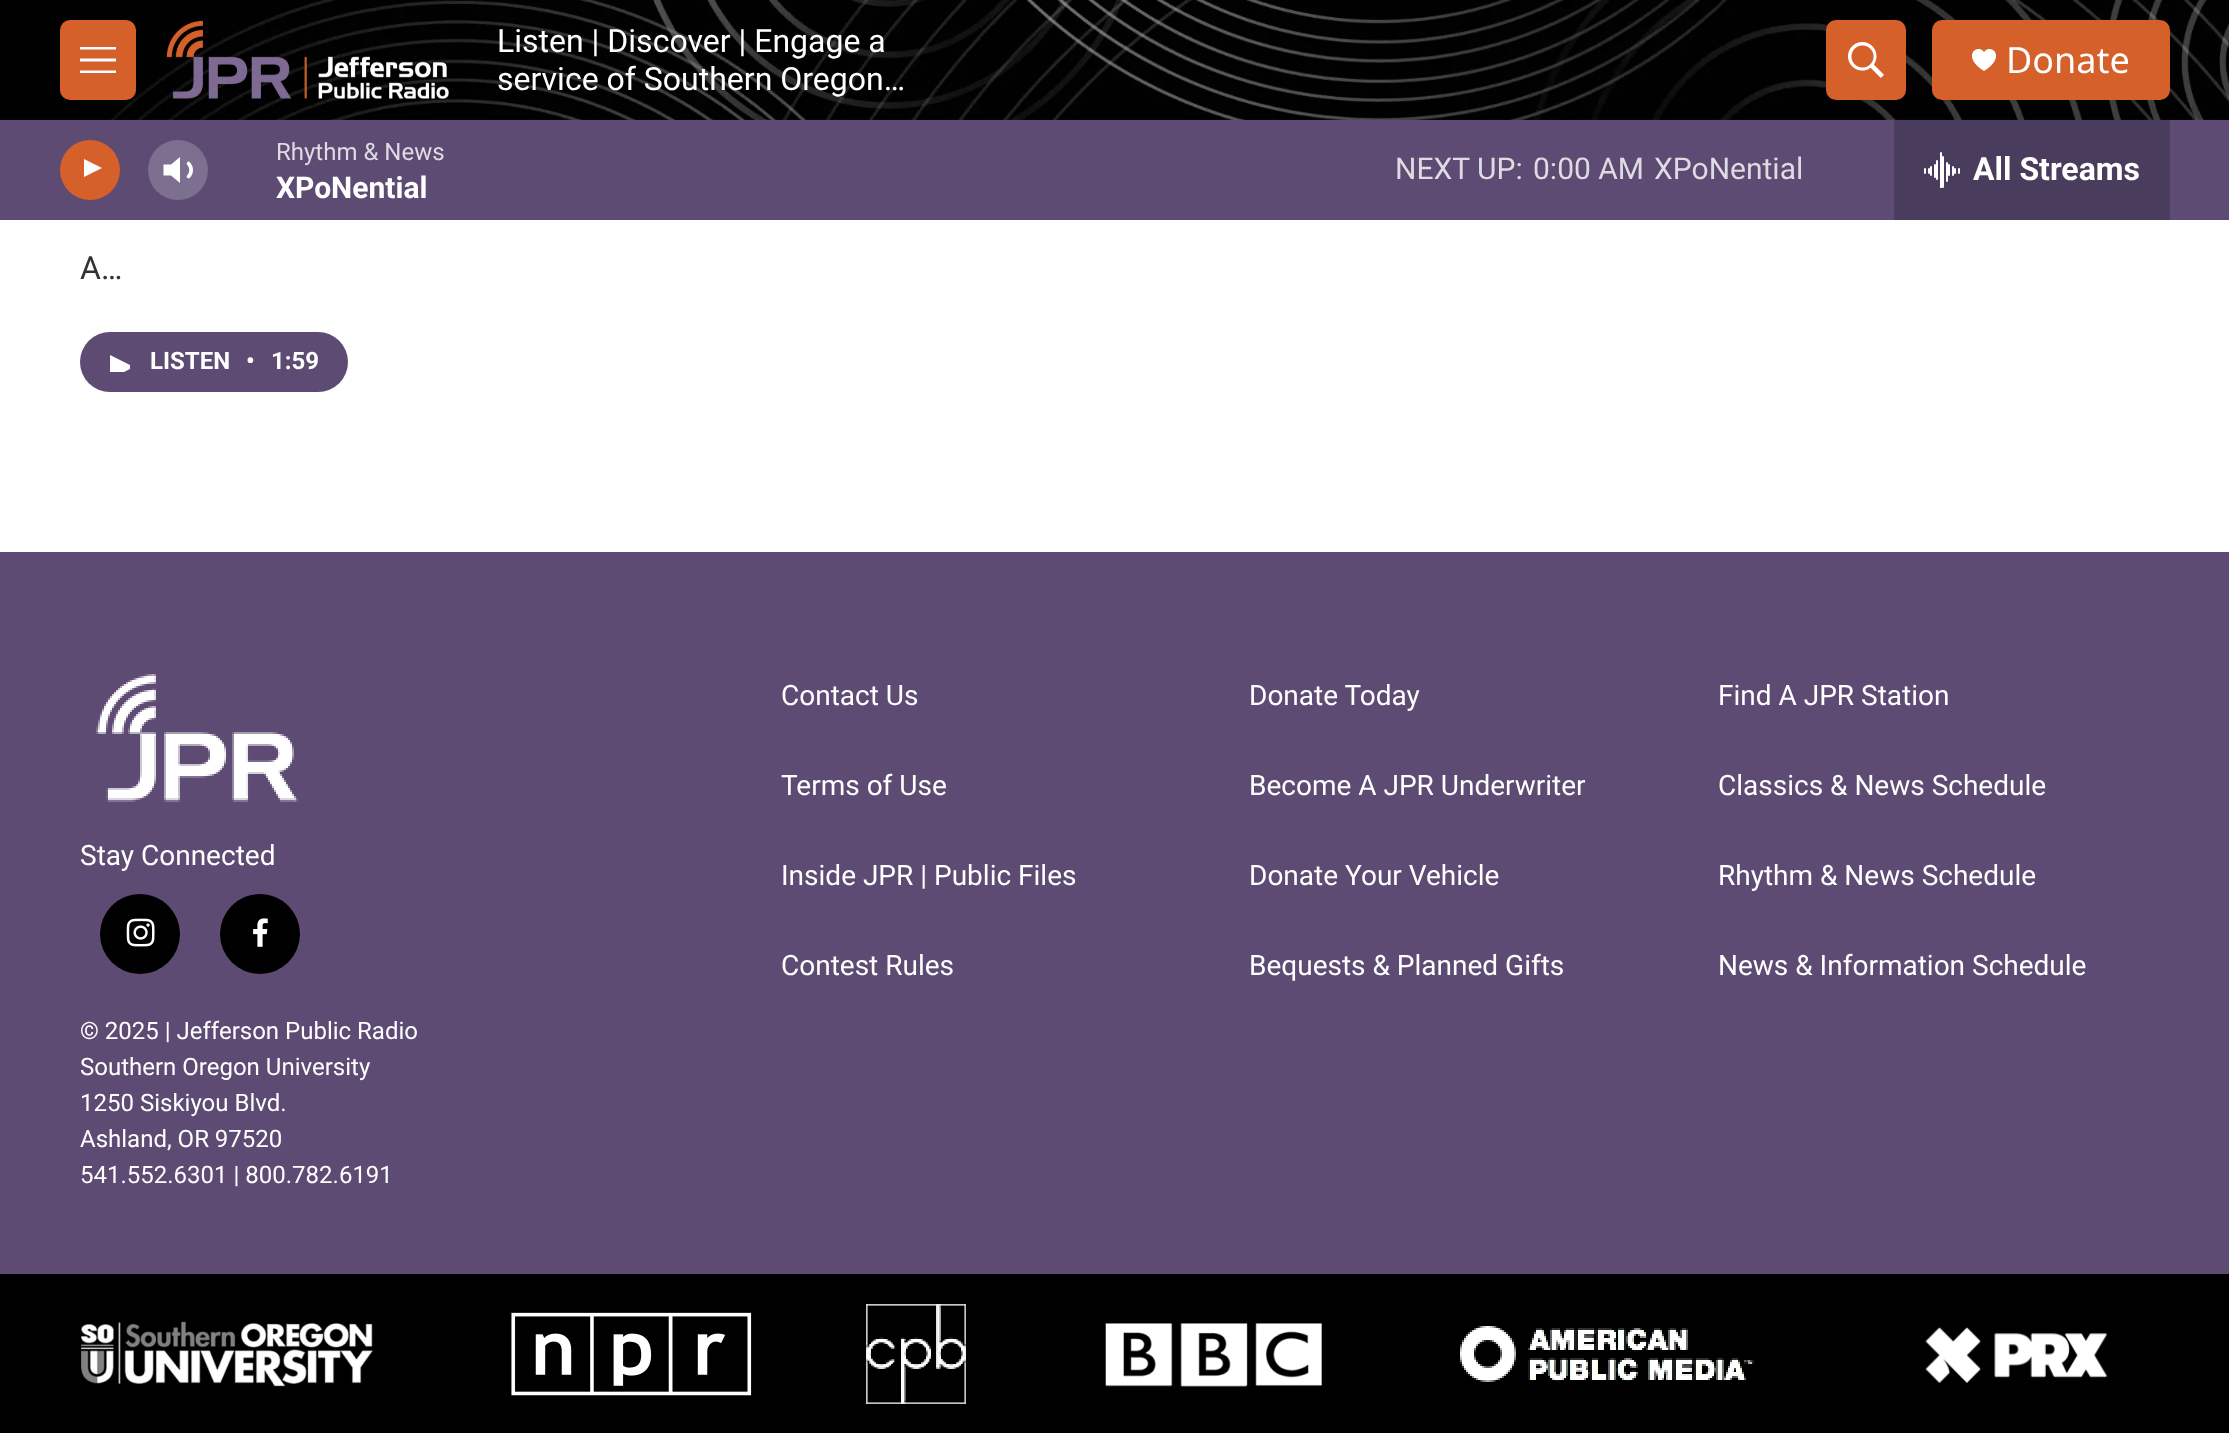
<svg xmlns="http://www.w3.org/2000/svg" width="2229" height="1433">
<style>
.a{font:32px Roboto;fill:#fff}
.b{font:36px Noto Sans;fill:#fff}
.c{font:24px Roboto;fill:#dfdbe3}
.d{font:bold 30px Roboto;fill:#fff}
.e{font:30px Roboto;fill:#dfdbe3}
.f{font:bold 32px Roboto;fill:#fff}
.g{font:32px Roboto;fill:#333}
.h{font:bold 24px Roboto;fill:#fff}
.i{font:28px Roboto;fill:#fff}
.j{font:24px Roboto;fill:#fff}
</style>
<defs>
<clipPath id="clip1"><path d="M84 156h23v30H84z"/></clipPath>
<clipPath id="clip2"><path d="M110 352h20v20H110z"/></clipPath>
</defs>
<rect width="100%" height="100%" fill="#fff"/>
<image href="1.png" x="0" y="0" width="2229" height="120"/>
<rect fill="#d5602a" x="60" y="20" width="76" height="80" rx="10"/>
<path fill="#fff" fill-rule="evenodd" d="M80 61.5v-3h36v3zm0-12v-2.5h36v2.5zm0 23.5v-2.5h36v2.5z"/>
<image href="2.png" x="166" y="20" width="283" height="80"/>
<rect fill="#d5602a" x="1826" y="20" width="80" height="80" rx="10"/>
<image href="3.png" x="1848" y="42" width="36" height="36"/>
<rect fill="#d5602a" x="1932" y="20" width="238" height="80" rx="10"/>
<image href="4.png" x="1972" y="49" width="24" height="22"/>
<path fill="#5d4b73" d="M0 120h2229v100H0z"/>
<circle fill="#d5602a" cx="90" cy="170" r="30"/>
<g clip-path="url(#clip1)">
<path fill="#fff" d="M83 158.5l19 9.5l-19 9.5z"/>
</g>
<path fill="#fff" d="M180 157l-9 7.5h-7.5v11h7.5l9 7.5z"/>
<path fill="none" stroke="#fff" stroke-width="3.7" stroke-linecap="round" stroke-linejoin="round" d="M188.5 163.5c3.5 3.5 3.5 9.5 0 13"/>
<circle fill="#ffffff33" cx="178" cy="170" r="30"/>
<path fill="#4a3c5c" d="M1894 120h276v100H1894z"/>
<image href="5.png" x="1924" y="152" width="36" height="36"/>
<rect fill="#5d4b73" x="80" y="332" width="268" height="60" rx="30"/>
<g clip-path="url(#clip2)">
<path fill="#fff" d="M110 355l24 12l-24 12z"/>
</g>
<path fill="#5d4b73" d="M0 552h2229v722H0z"/>
<image href="6.png" x="96" y="674" width="202" height="128"/>
<circle fill="#000" cx="140" cy="934" r="40"/>
<image href="7.png" x="126" y="918" width="29" height="29"/>
<circle fill="#000" cx="260" cy="934" r="40"/>
<image href="8.png" x="253" y="918" width="15" height="29"/>
<path fill="#000" d="M0 1274h2229v159H0z"/>
<image href="9.png" x="81" y="1321" width="292" height="66"/>
<image href="10.png" x="511" y="1312" width="241" height="84"/>
<image href="11.png" x="866" y="1304" width="100" height="100"/>
<image href="12.png" x="1105" y="1323" width="217" height="64"/>
<image href="13.png" x="1460" y="1326" width="294" height="56"/>
<image href="14.png" x="1925" y="1327" width="183" height="56"/>
<text class="a" x="497" y="52">Listen | Discover | Engage a</text>
<text class="a" x="497" y="90">service of Southern Oregon…</text>
<text class="b" x="2006" y="73">Donate</text>
<text class="c" x="276" y="160">Rhythm &amp; News</text>
<text class="d" x="276" y="198">XPoNential</text>
<text class="e" x="1395" y="179">NEXT UP:</text>
<text class="e" x="1533" y="179">0:00 AM</text>
<text class="e" x="1654" y="179">XPoNential</text>
<text class="f" x="1973" y="180">All Streams</text>
<text class="g" x="80" y="279">A…</text>
<text class="h" x="150" y="369">LISTEN</text>
<text class="h" x="246" y="369">•</text>
<text class="h" x="271" y="369">1:59</text>
<text class="i" x="80" y="865">Stay Connected</text>
<text class="j" x="80" y="1039">© 2025 | Jefferson Public Radio</text>
<text class="j" x="80" y="1075">Southern Oregon University</text>
<text class="j" x="80" y="1111">1250 Siskiyou Blvd.</text>
<text class="j" x="80" y="1147">Ashland, OR 97520</text>
<text class="j" x="80" y="1183">541.552.6301 | 800.782.6191</text>
<text class="i" x="781" y="705">Contact Us</text>
<text class="i" x="1249" y="705">Donate Today</text>
<text class="i" x="1718" y="705">Find A JPR Station</text>
<text class="i" x="781" y="795">Terms of Use</text>
<text class="i" x="1249" y="795">Become A JPR Underwriter</text>
<text class="i" x="1718" y="795">Classics &amp; News Schedule</text>
<text class="i" x="781" y="885">Inside JPR | Public Files</text>
<text class="i" x="1249" y="885">Donate Your Vehicle</text>
<text class="i" x="1718" y="885">Rhythm &amp; News Schedule</text>
<text class="i" x="781" y="975">Contest Rules</text>
<text class="i" x="1249" y="975">Bequests &amp; Planned Gifts</text>
<text class="i" x="1718" y="975">News &amp; Information Schedule</text>
</svg>
